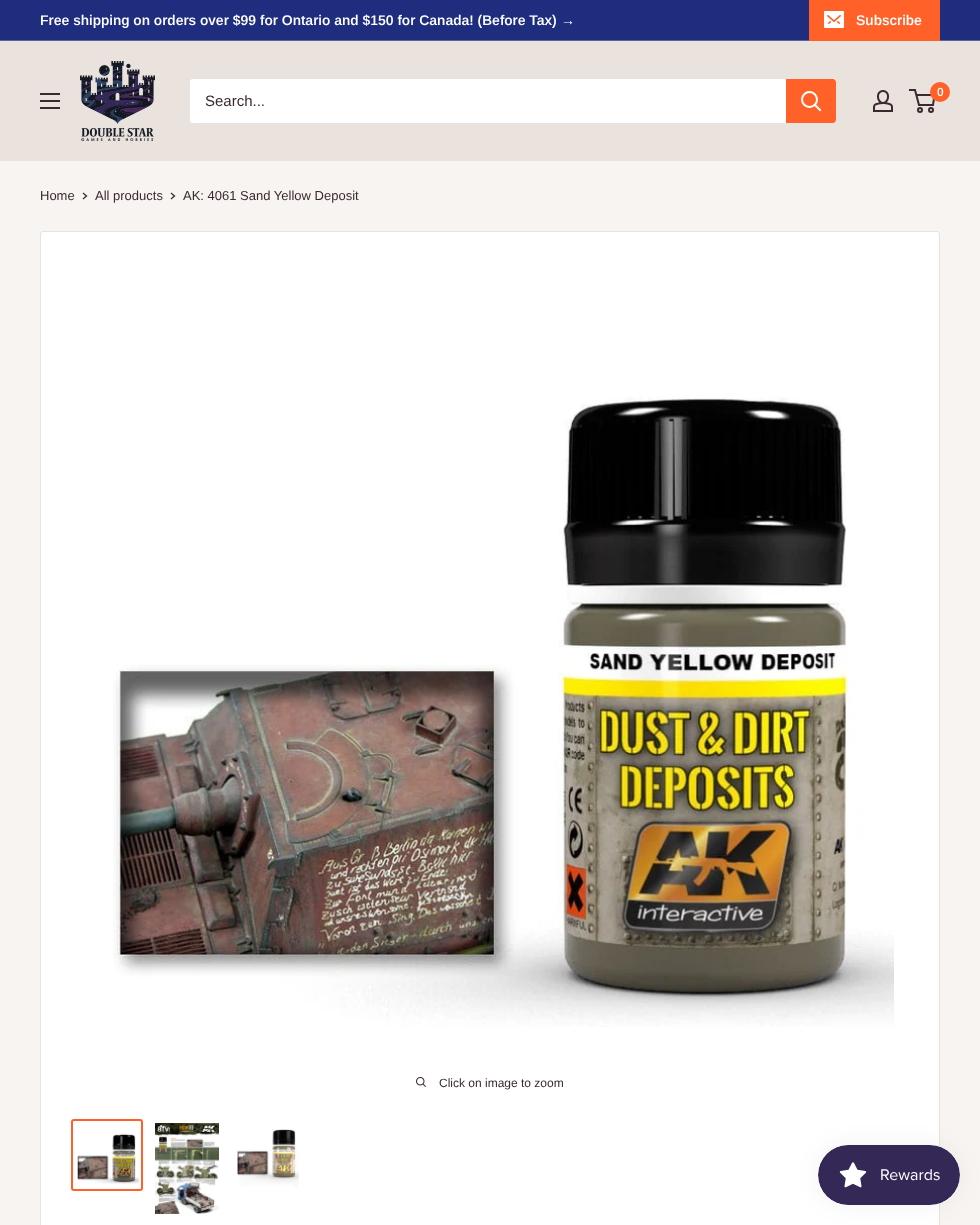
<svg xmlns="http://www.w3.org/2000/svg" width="980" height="1225">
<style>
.a{font:600 14px Arimo;fill:#fff}
.b{font:bold 14px Liberation Sans;fill:#fff}
.c{font:600 12px Arimo;fill:#fff}
.d{font:15px Arimo;fill:#3a2a2f}
.e{font:13px Arimo;fill:#3a2a2f}
.f{font:12px Arimo;fill:#3a2a2f}
</style>
<rect width="100%" height="100%" fill="#f7f4f2"/>
<path fill="#1e2d7d" d="M0 0h980v40H0z"/>
<path fill="#5b639a" d="M0 40h980v1H0z"/>
<path fill="#ff6128" d="M809 0h131v41H809z"/>
<image href="1.png" x="824" y="11" width="20" height="17"/>
<path fill="#e9e2dd" d="M0 41h980v120H0z"/>
<image href="2.png" x="80" y="61" width="75" height="80"/>
<image href="3.png" x="873" y="90" width="20" height="22"/>
<circle fill="none" stroke="#3a2a2f" stroke-width="2" cx="920" cy="110" r="2"/>
<circle fill="none" stroke="#3a2a2f" stroke-width="2" cx="931" cy="110" r="2"/>
<path fill="none" stroke="#3a2a2f" stroke-width="2" d="M916.5 95h18l-1.5 10h-14l-4-15h-6"/>
<circle fill="#ff6128" cx="940" cy="92" r="10"/>
<image href="4.png" x="40" y="93" width="20" height="16"/>
<rect fill="#fff" x="190" y="79" width="646" height="44" rx="3"/>
<path fill="#ff6128" d="M786 79h47c1.5 0 3 1.5 3 3v38c0 1.5-1.5 3-3 3h-47z"/>
<path fill="none" stroke="#fff" stroke-width="2" stroke-linecap="square" d="M820 110l-5-5"/>
<circle fill="none" stroke="#fff" stroke-width="2" cx="809.5" cy="99.5" r="7.5"/>
<path fill="none" stroke="#3a2a2f" stroke-width="1.3" stroke-linecap="square" d="M83.5 193.5l3 2.5l-3 2.5"/>
<path fill="none" stroke="#3a2a2f" stroke-width="1.3" stroke-linecap="square" d="M171.5 193.5l3 2.5l-3 2.5"/>
<rect fill="#fff" stroke="#e7e2de" x="40.5" y="231.5" width="899" height="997" rx="2.5"/>
<image href="5.png" x="113" y="397" width="781" height="630"/>
<image href="6.png" x="416" y="1077" width="10" height="10"/>
<rect fill="none" stroke="#ff6128" stroke-width="2" x="72" y="1120" width="70" height="70" rx="2"/>
<image href="7.png" x="77" y="1133" width="62" height="51"/>
<image href="8.png" x="155" y="1123" width="64" height="91"/>
<image href="9.png" x="237" y="1129" width="62" height="58"/>
<rect fill="#0000000d" filter="blur(12.5px)" x="818" y="1145" width="142" height="60" rx="30"/>
<image href="10.png" x="818" y="1145" width="142" height="60"/>
<text class="a" x="40" y="25">Free shipping on orders over $99 for Ontario and $150 for Canada! (Before Tax)</text>
<text class="b" x="561" y="25">→</text>
<text class="a" x="856" y="25">Subscribe</text>
<text class="c" x="937" y="96">0</text>
<text class="d" x="205" y="106">Search...</text>
<text class="e" x="40" y="200">Home</text>
<text class="e" x="95" y="200">All products</text>
<text class="e" x="183" y="200">AK: 4061 Sand Yellow Deposit</text>
<text class="f" x="439" y="1087">Click on image to zoom</text>
</svg>
